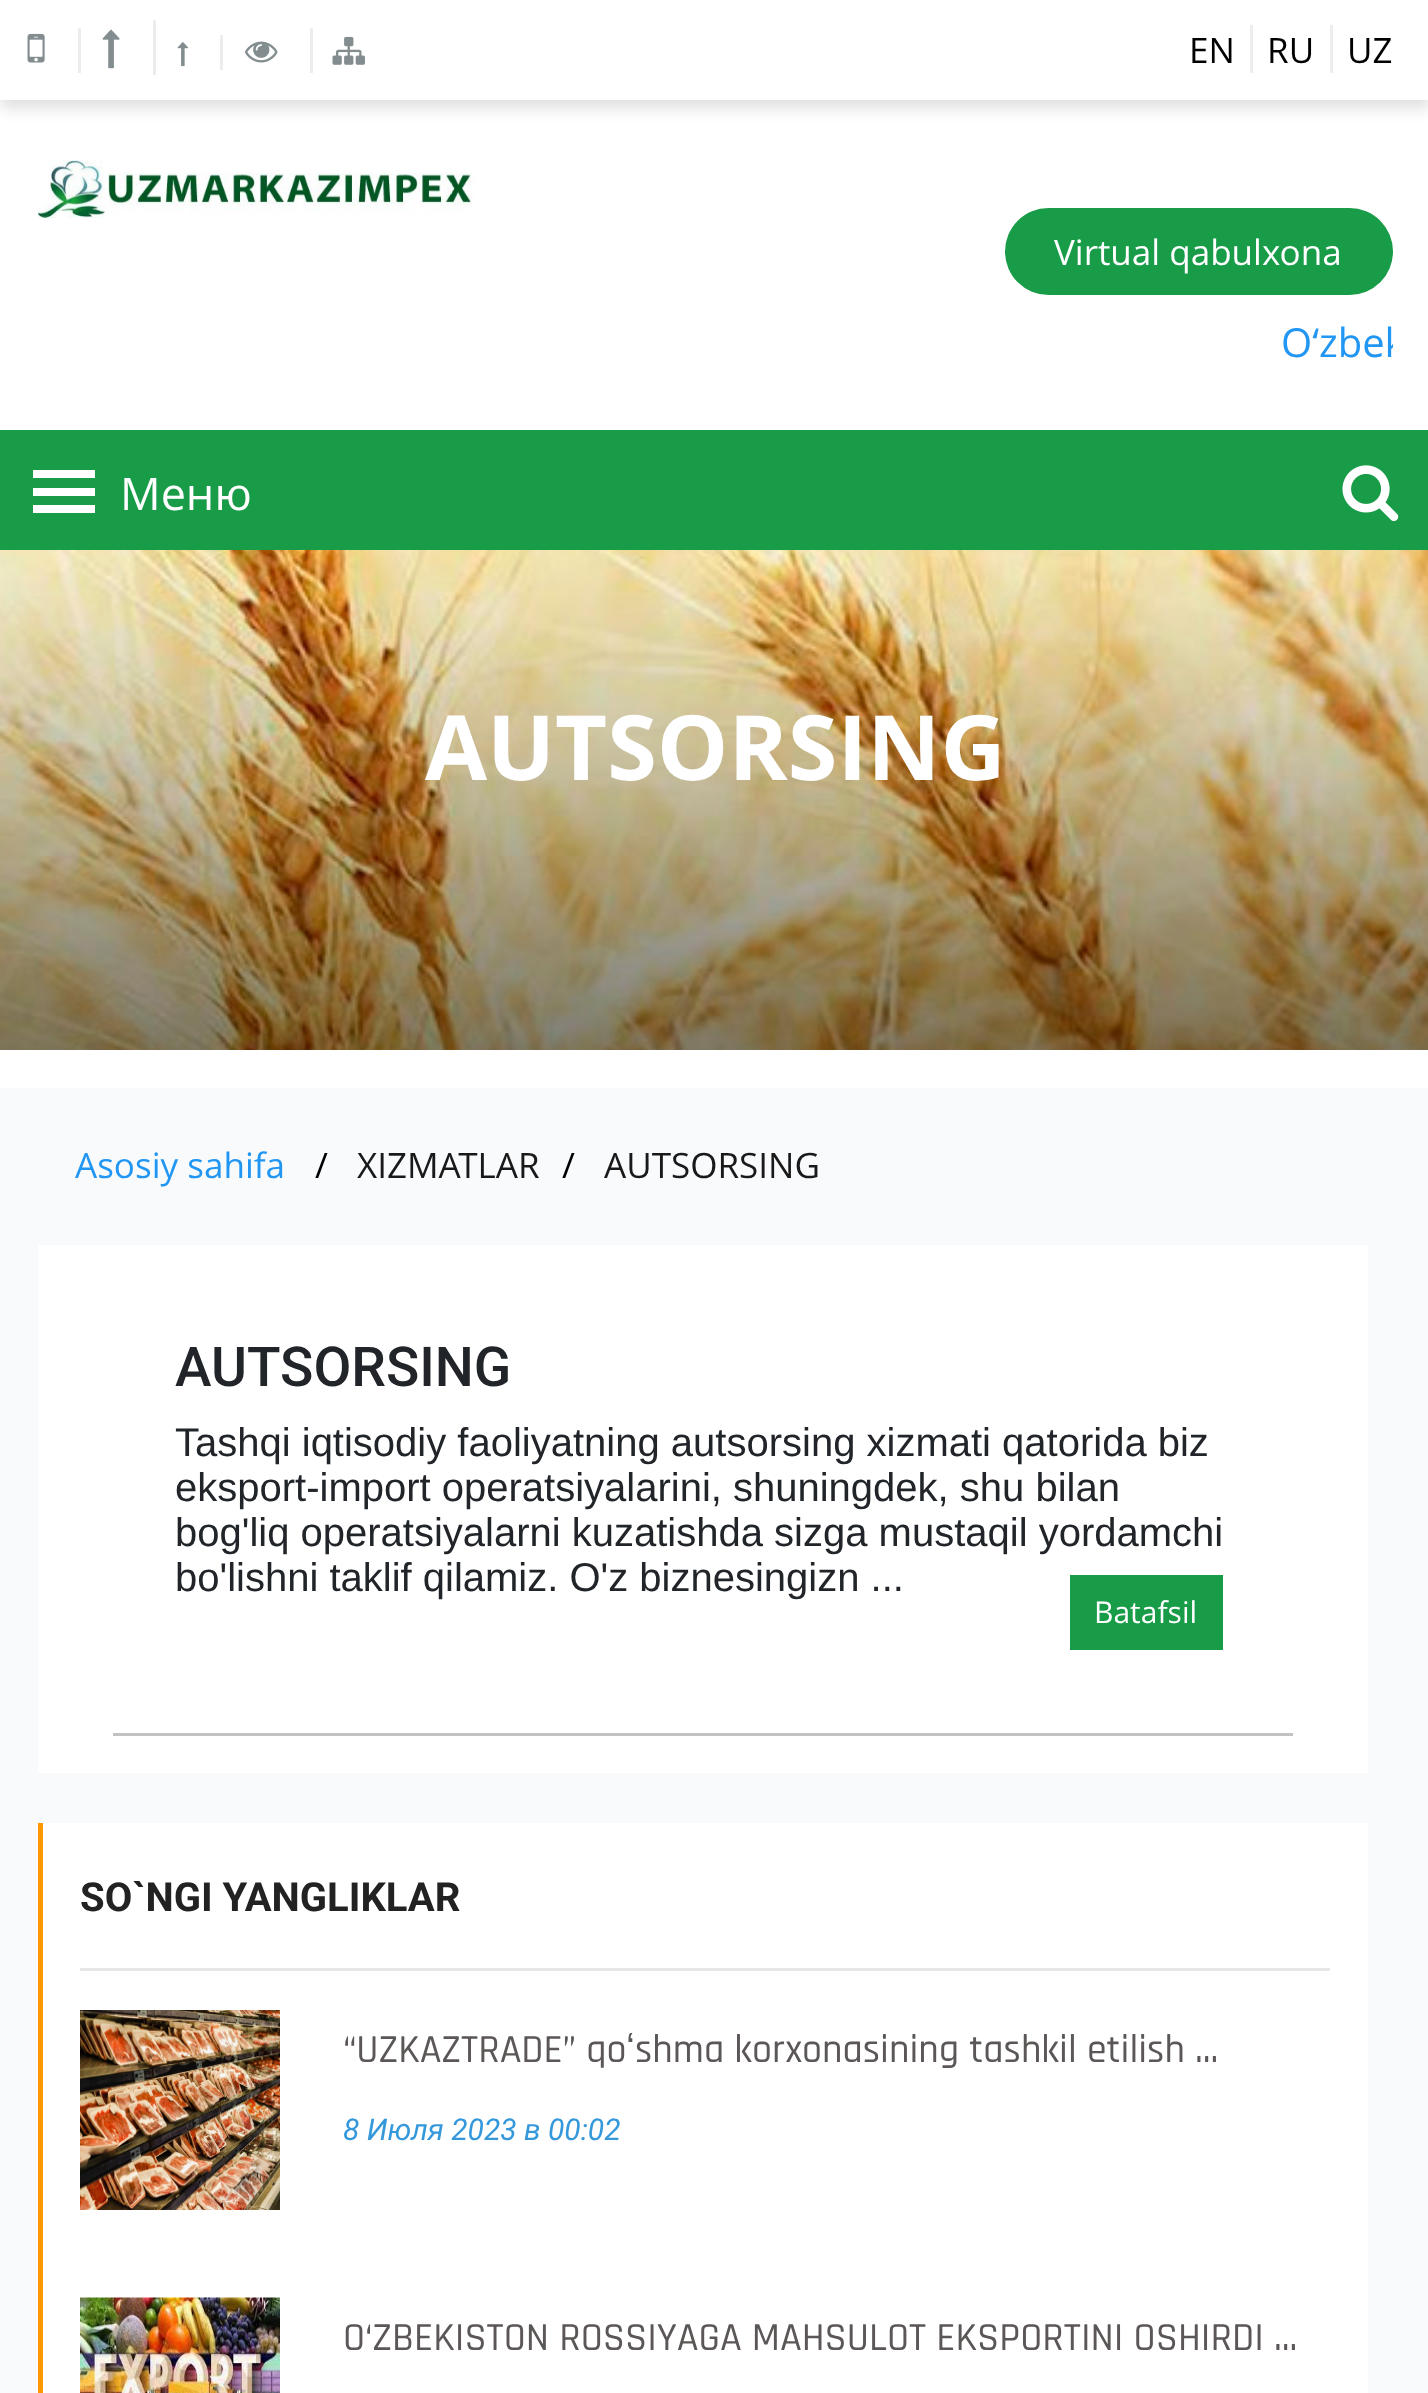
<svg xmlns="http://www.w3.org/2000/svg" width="1428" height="2393">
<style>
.a{font:35px Open Sans;fill:#000}
.b{font:35px Open Sans;fill:#fff}
.c{font:40px Open Sans;fill:#2196f3}
.d{font:45px Open Sans;fill:#fff}
.e{font:bold 90px Open Sans;fill:#fff}
.f{font:35px Open Sans;fill:#2196f3}
.g{font:35px Open Sans;fill:#1a1919}
.h{font:500 55px Roboto;fill:#212529}
.i{font:40px Liberation Sans;fill:#212529}
.j{font:30px Open Sans;fill:#fff}
.k{font:bold 40px Roboto;fill:#222}
.l{font:500 40px Rajdhani;fill:#5c5757}
.m{font:40px Liberation Sans;fill:#5c5757}
.n{font:italic 30px Roboto;fill:#3498db}
</style>
<defs>
<clipPath id="clip1"><path d="M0 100h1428v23H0z"/></clipPath>
<clipPath id="clip2"><path d="M500 265h893v155H500z"/></clipPath>
</defs>
<rect width="100%" height="100%" fill="#fff"/>
<g clip-path="url(#clip1)">
<path fill="#dedede" filter="blur(7.5px)" d="M0 8h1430v100H0z"/>
</g>
<path fill="#ecedee" d="M78 28h3v45H78z"/>
<image href="1.png" x="27" y="33" width="18" height="30"/>
<path fill="#ecedee" d="M153 20h3v55H153z"/>
<image href="2.png" x="102" y="29" width="18" height="40"/>
<path fill="#ecedee" d="M220 35h3v35H220z"/>
<image href="3.png" x="177" y="42" width="12" height="25"/>
<path fill="#ecedee" d="M310 28h3v45H310z"/>
<image href="4.png" x="245" y="41" width="33" height="22"/>
<image href="5.png" x="332" y="36" width="33" height="29"/>
<path fill="#ecedee" d="M1250 25h3v48H1250z"/>
<path fill="#ecedee" d="M1330 25h3v48H1330z"/>
<image href="6.png" x="38" y="160" width="437" height="58"/>
<rect fill="#189c48" x="1005" y="208" width="388" height="87" rx="43.5"/>
<path fill="#189c48" d="M0 430h1428v120H0z"/>
<path fill="#fff" d="M33 488h62v8H33z"/>
<path fill="#fff" d="M33 470h62v8H33z"/>
<path fill="#fff" d="M33 505h62v8H33z"/>
<image href="7.png" x="1342" y="465" width="57" height="57"/>
<image href="8.png" x="0" y="550" width="1428" height="500"/>
<path fill="#f9fafc" d="M0 1088h1428v1305H0z"/>
<path fill="#fff" d="M38 1245h1330v528H38z"/>
<path fill="#c2c2c2" d="M113 1733h1180v3H113z"/>
<path fill="#189c48" d="M1070 1575h153v75H1070z"/>
<path fill="#fff" d="M43 1823h1325v570H43z"/>
<path fill="#ff9800" d="M38 1823h5v570H38z"/>
<path fill="#e6e6e6" d="M80 1968h1250v3H80z"/>
<image href="9.png" x="80" y="2010" width="200" height="200"/>
<image href="10.png" x="80" y="2297" width="200" height="96"/>
<text class="a" x="1189" y="63">EN</text>
<text class="a" x="1267" y="63">RU</text>
<text class="a" x="1347" y="63">UZ</text>
<text class="b" x="1054" y="265">Virtual qabulxona</text>
<g clip-path="url(#clip2)">
<text class="c" x="1281" y="357" word-spacing="13">O‘zbek</text>
</g>
<text class="d" x="120" y="510">Меню</text>
<text class="e" x="425" y="780">AUTSORSING</text>
<text class="f" x="75" y="1178">Asosiy sahifa</text>
<text class="a" x="315" y="1178">/</text>
<text class="g" x="357" y="1178">XIZMATLAR</text>
<text class="a" x="562" y="1178">/</text>
<text class="g" x="604" y="1178">AUTSORSING</text>
<text class="h" x="175" y="1386">AUTSORSING</text>
<text class="i" x="175" y="1456">Tashqi iqtisodiy faoliyatning autsorsing xizmati qatorida biz</text>
<text class="i" x="175" y="1501">eksport-import operatsiyalarini, shuningdek, shu bilan</text>
<text class="i" x="175" y="1546">bog'liq operatsiyalarni kuzatishda sizga mustaqil yordamchi</text>
<text class="i" x="175" y="1591">bo'lishni taklif qilamiz. O'z biznesingizn ...</text>
<text class="j" x="1094" y="1623">Batafsil</text>
<text class="k" x="80" y="1911">SO`NGI YANGLIKLAR</text>
<text class="l" x="343" y="2062">“UZKAZTRADE” qo</text>
<text class="m" x="626" y="2062">ʻ</text>
<text class="l" x="635" y="2062">shma korxonasining tashkil etilish ...</text>
<text class="n" x="343" y="2140">8 Июля 2023 в 00:02</text>
<text class="l" x="343" y="2350">O‘ZBEKISTON ROSSIYAGA MAHSULOT EKSPORTINI OSHIRDI ...</text>
</svg>
